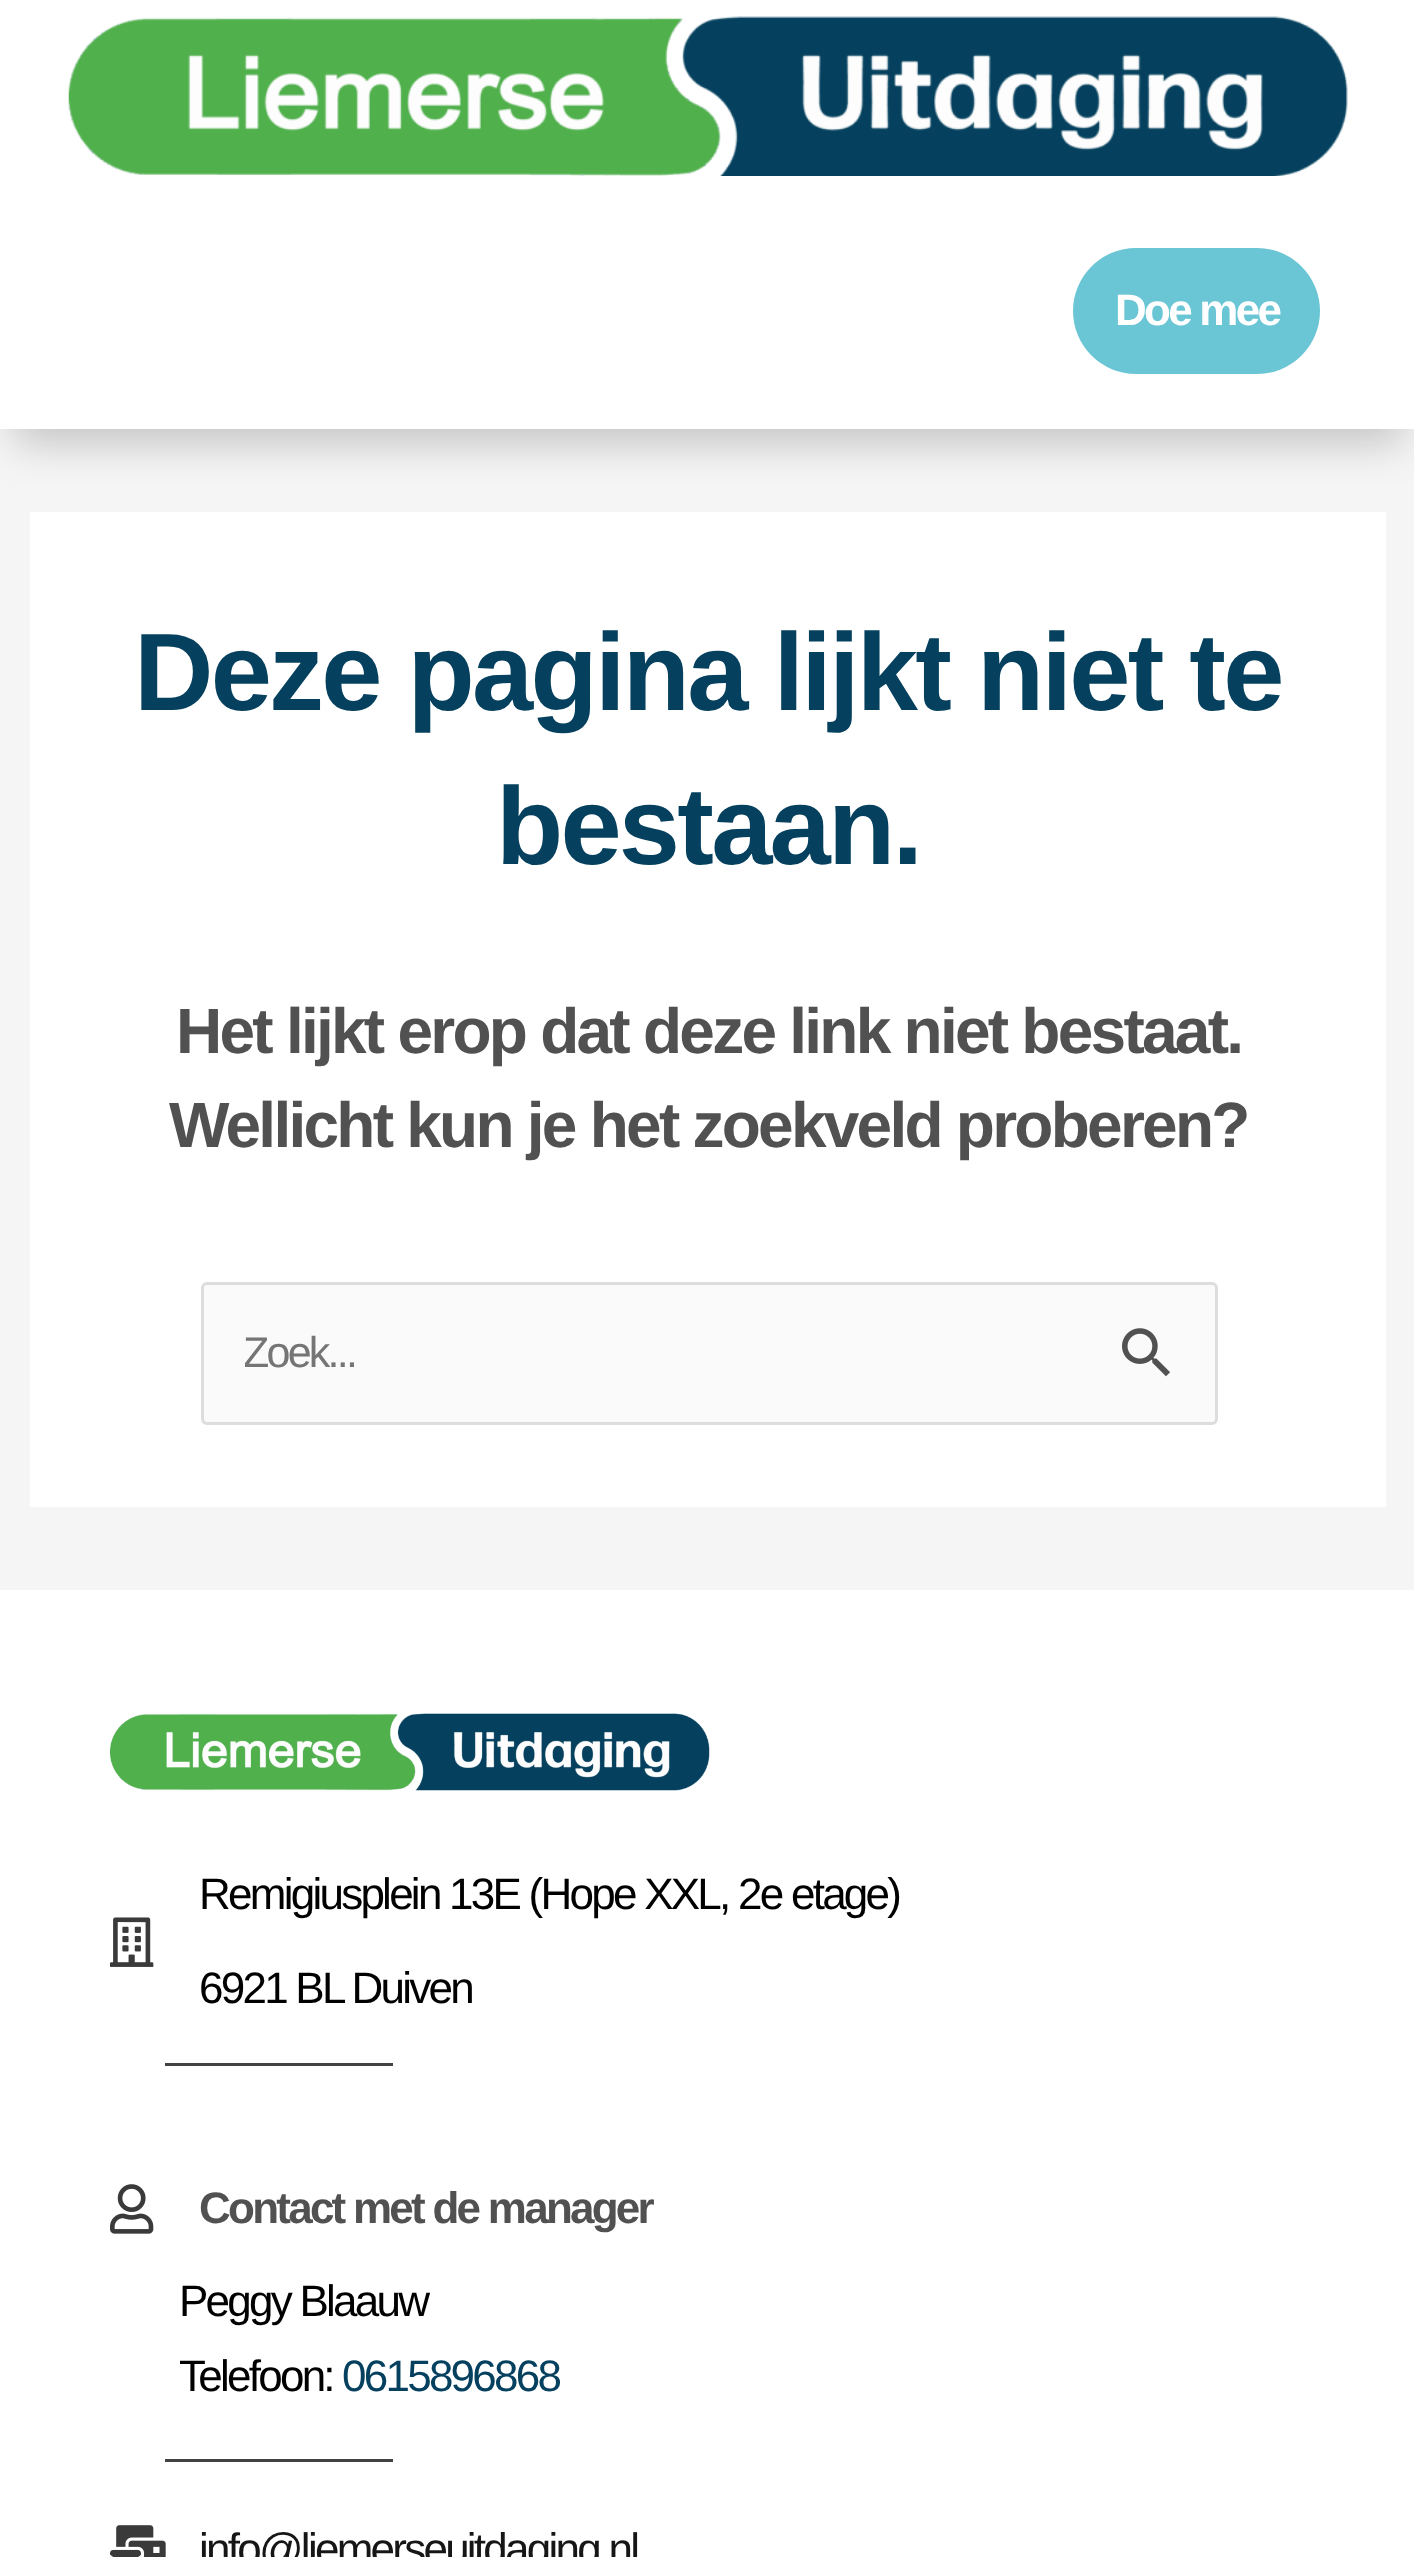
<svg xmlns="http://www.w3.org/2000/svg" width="1414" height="2557">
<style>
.a{font:bold 44px Liberation Sans;letter-spacing:-2.75px;fill:#fff}
.b{font:bold 110px Liberation Sans;letter-spacing:-2.75px;fill:#05415e}
.c{font:bold 64px Liberation Sans;letter-spacing:-2.75px;fill:#515151}
.d{font:43px Liberation Sans;letter-spacing:-2.75px;fill:#757575}
.e{font:44px Liberation Sans;letter-spacing:-2.75px;fill:#000}
.f{font:bold 44px Liberation Sans;letter-spacing:-2.75px;fill:#515151}
.g{font:44px Liberation Sans;letter-spacing:-2.75px;fill:#05415e}
.h{font:44px Liberation Sans;letter-spacing:-2.75px;fill:#161616}
</style>
<defs>
<clipPath id="clip1"><path d="M245 1328h836v50H245z"/></clipPath>
</defs>
<rect width="100%" height="100%" fill="#f5f5f5"/>
<path fill="#00000033" filter="blur(20.5px)" d="M14 41h1389v402H14z"/>
<path fill="#fff" d="M0 0h1414v429H0z"/>
<image href="1.png" x="68" y="16" width="1280" height="160"/>
<rect fill="#6ac5d5" x="1073" y="248" width="247" height="126" rx="63"/>
<path fill="#fff" d="M30 512h1356v995H30z"/>
<rect fill="#fafafa" stroke="#ddd" stroke-width="3" x="202.5" y="1283.5" width="1014" height="140" rx="4.5"/>
<image href="2.png" x="1122" y="1328" width="48" height="49"/>
<path fill="#fff" d="M0 1590h1414v967H0z"/>
<image href="3.png" x="110" y="1713" width="600" height="78"/>
<image href="4.png" x="110" y="1917" width="44" height="50"/>
<path fill="#424242" d="M165 2063h228v3H165z"/>
<image href="5.png" x="110" y="2184" width="44" height="50"/>
<path fill="#424242" d="M165 2459h228v3H165z"/>
<image href="6.png" x="110" y="2525" width="56" height="32"/>
<text class="a" x="1115" y="325">Doe mee</text>
<text class="b" x="134" y="710">Deze pagina lijkt niet te</text>
<text class="b" x="496" y="864">bestaan.</text>
<text class="c" x="176" y="1053">Het lijkt erop dat deze link niet bestaat.</text>
<text class="c" x="169" y="1147">Wellicht kun je het zoekveld proberen?</text>
<g clip-path="url(#clip1)">
<text class="d" x="243" y="1367">Zoek...</text>
</g>
<text class="e" x="199" y="1909">Remigiusplein 13E (Hope XXL, 2e etage)</text>
<text class="e" x="199" y="2003">6921 BL Duiven</text>
<text class="f" x="199" y="2223">Contact met de manager</text>
<text class="e" x="179" y="2316">Peggy Blaauw</text>
<text class="e" x="179" y="2391">Telefoon:</text>
<text class="g" x="342" y="2391">0615896868</text>
<text class="h" x="199" y="2564">info@liemerseuitdaging.nl</text>
</svg>
